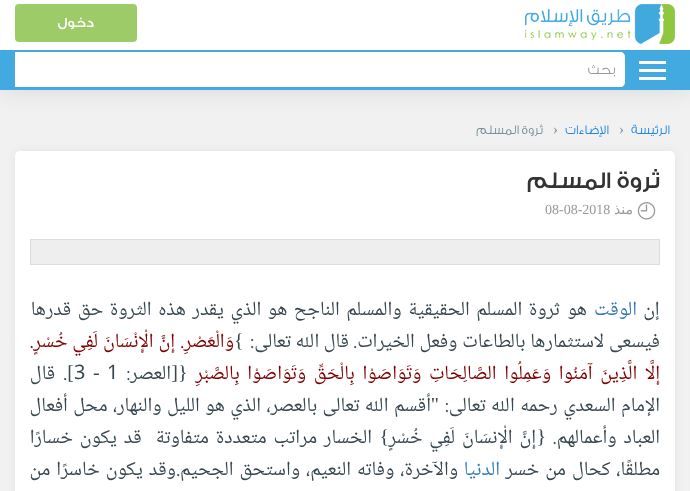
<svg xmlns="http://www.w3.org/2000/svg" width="690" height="491">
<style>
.a{font:500 14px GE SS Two;direction:rtl;fill:#fff}
.b{font:300 14px GE SS Two;direction:rtl;fill:#999}
.c{font:300 13px GE SS Two;direction:rtl;fill:#1e88e5}
.d{font:15px Liberation Serif;fill:#78909c}
.e{font:300 13px GE SS Two;direction:rtl;fill:#78909c}
.f{font:500 24px GE SS Two;direction:rtl;fill:#333}
.g{font:14px DejaVu Sans;direction:rtl;fill:#999}
.h{font:14px Liberation Serif;fill:#999}
.i{font:20px Noto Naskh Arabic;direction:rtl;fill:#37474f}
.j{font:20px Noto Naskh Arabic;direction:rtl;fill:#337ab7}
.k{font:20px Liberation Serif;fill:#37474f}
.l{font:20px Noto Naskh Arabic;direction:rtl;fill:#800000}
.m{font:20px Liberation Serif;direction:rtl;fill:#37474f}
.n{font:20px Noto Naskh Arabic;fill:#37474f}
</style>
<rect width="100%" height="100%" fill="#f1f1f1"/>
<path fill="#0000001a" filter="blur(12.5px)" d="M0 0h690v90H0z"/>
<path fill="#42aae0" d="M0 50h690v40H0z"/>
<path fill="#fff" d="M0 0h690v50H0z"/>
<rect fill="#9dcb68" x="15" y="4" width="122" height="38" rx="4"/>
<image href="1.png" x="525" y="4" width="150" height="40"/>
<path fill="#fff" d="M639 61h27v3H639z"/>
<path fill="#fff" d="M639 69h27v3H639z"/>
<path fill="#fff" d="M639 77h27v3H639z"/>
<path fill="#fff" d="M15 52h605c3 0 5 2 5 5v25c0 3-2 5-5 5h-605z"/>
<rect fill="#0000000d" filter="blur(5px)" x="15" y="151" width="660" height="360" rx="5"/>
<rect fill="#fff" x="15" y="151" width="660" height="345" rx="5"/>
<image href="2.png" x="637" y="202" width="19" height="18"/>
<path fill="#eee" stroke="#ddd" d="M30.5 239.5h629v25H30.5z"/>
<text class="a" x="94" y="27">دخول</text>
<text class="b" x="615" y="74">بحث</text>
<text class="c" x="670" y="134">الرئيسة</text>
<text class="d" x="619" y="134">›</text>
<text class="c" x="609" y="134">الإضاءات</text>
<text class="d" x="553" y="134">›</text>
<text class="e" x="543" y="134">ثروة المسلم</text>
<text class="f" x="660" y="188">ثروة المسلم</text>
<text class="g" x="633" y="214">منذ</text>
<text class="h" x="545" y="214">08-08-2018</text>
<text class="i" x="660" y="315">إن</text>
<text class="j" x="637" y="315">الوقت</text>
<text class="i" x="587" y="315" word-spacing="2.1">هو ثروة المسلم الحقيقية والمسلم الناجح هو الذي يقدر هذه الثروة حق قدرها</text>
<text class="i" x="660" y="347" word-spacing="0.5">فيسعى لاستثمارها بالطاعات وفعل الخيرات.</text>
<text class="i" x="349" y="347">قال الله تعالى:</text>
<text class="k" x="234" y="347">{</text>
<text class="l" x="234" y="347" word-spacing="0.5">وَالْعَصْرِ. إِنَّ الْإِنْسَانَ لَفِي خُسْرٍ.</text>
<text class="l" x="660" y="379" word-spacing="3.25">إِلَّا الَّذِينَ آمَنُوا وَعَمِلُوا الصَّالِحَاتِ وَتَوَاصَوْا بِالْحَقِّ وَتَوَاصَوْا بِالصَّبْرِ</text>
<text class="k" x="178" y="379">}</text>
<text class="m" x="178" y="379">[</text>
<text class="i" x="171" y="379">العصر:</text>
<text class="n" x="107" y="379">1</text>
<text class="k" x="93" y="379">-</text>
<text class="n" x="74" y="379">3</text>
<text class="m" x="74" y="379">]</text>
<text class="i" x="67" y="379" word-spacing="3.25">. قال</text>
<text class="i" x="660" y="411" word-spacing="1">الإمام السعدي رحمه الله تعالى:</text>
<text class="m" x="439" y="411">"</text>
<text class="i" x="431" y="411" word-spacing="1">أقسم الله تعالى بالعصر، الذي هو الليل والنهار، محل أفعال</text>
<text class="i" x="660" y="443" word-spacing="2.5">العباد وأعمالهم.</text>
<text class="m" x="546" y="443">{</text>
<text class="i" x="536" y="443" word-spacing="2.5">إِنَّ الْإِنسَانَ لَفِي خُسْرٍ</text>
<text class="m" x="389" y="443">}</text>
<text class="i" xml:space="preserve" x="372" y="443" word-spacing="2.5">الخسار مراتب متعددة متفاوتة  قد يكون خسارًا</text>
<text class="i" x="660" y="475" word-spacing="1.5">مطلقًا، كحال من خسر</text>
<text class="j" x="500" y="475">الدنيا</text>
<text class="i" x="458" y="475" word-spacing="1.5">والآخرة، وفاته النعيم، واستحق الجحيم.</text>
<text class="i" x="176" y="475" word-spacing="1.5">وقد يكون خاسرًا من</text>
</svg>
